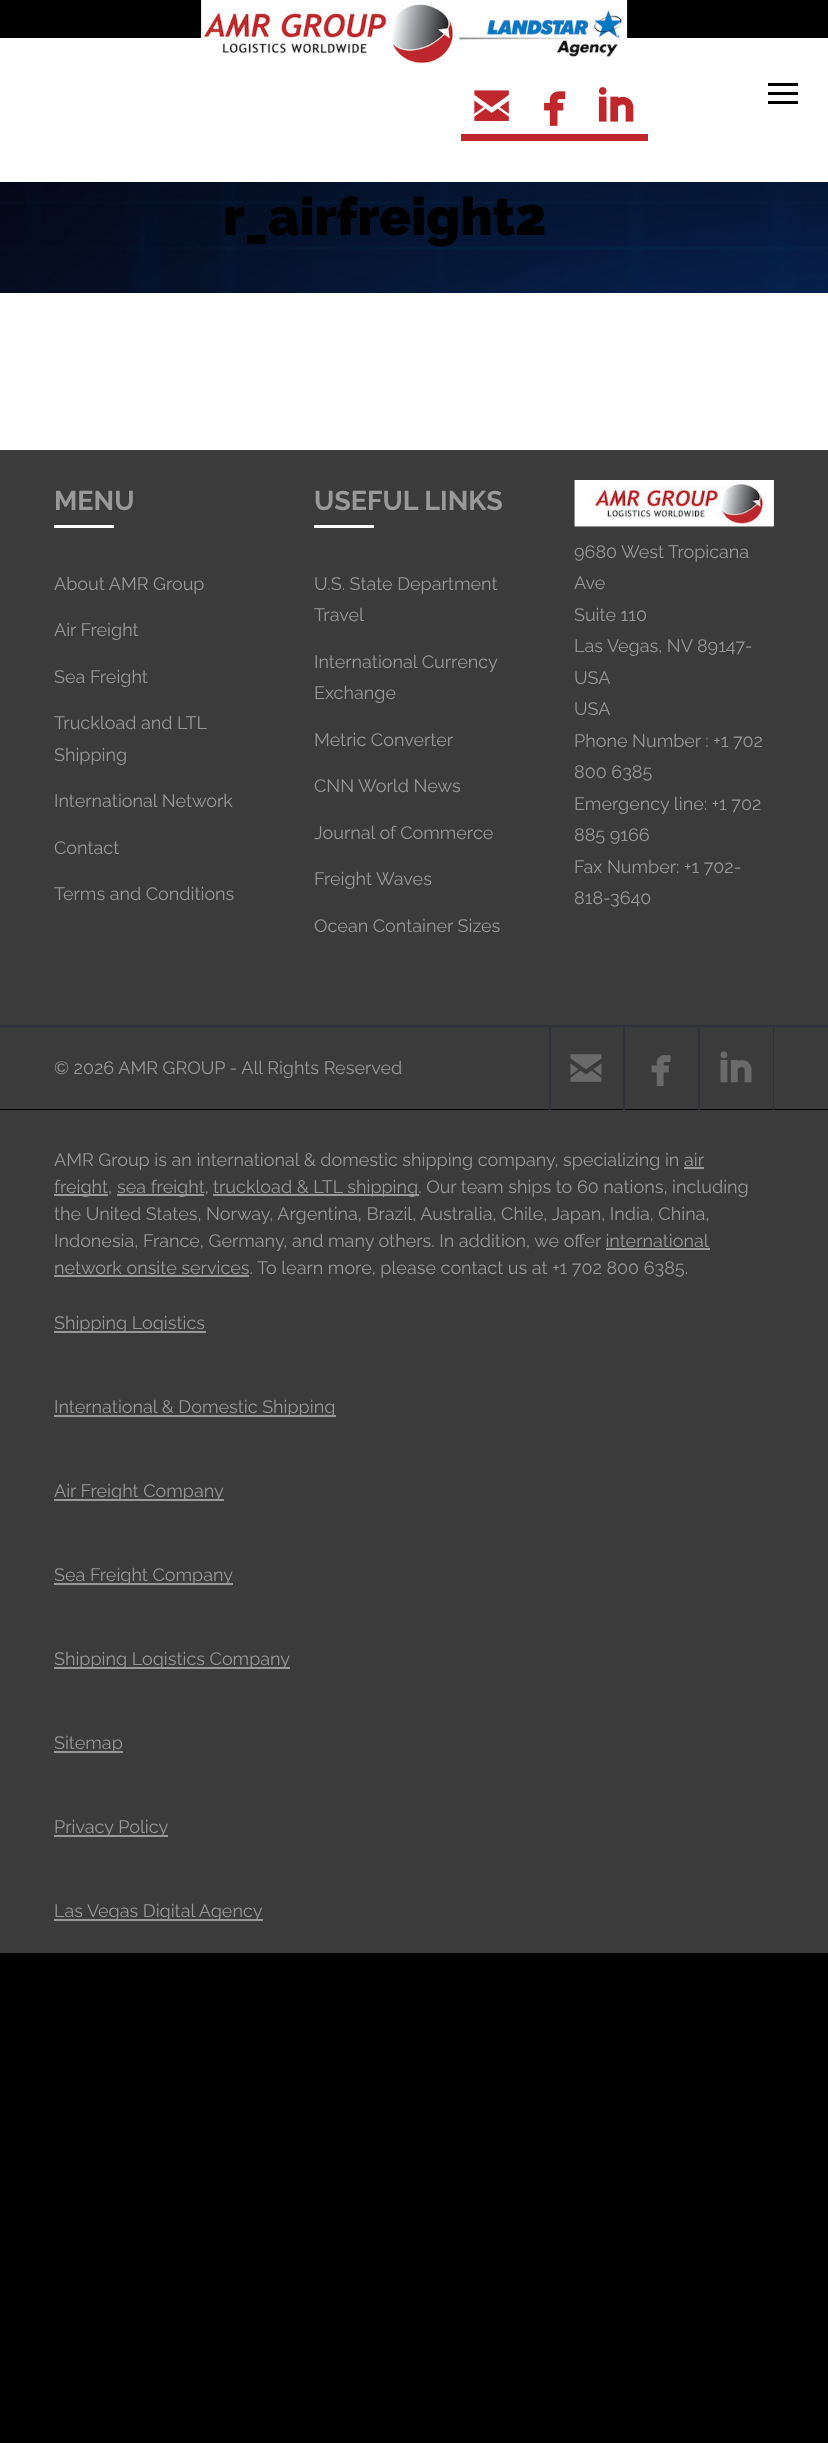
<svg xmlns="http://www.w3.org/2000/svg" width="828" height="2443">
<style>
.a{font:900 52.5px Raleway;fill:#000}
.b{font:bold 27px Raleway;fill:#999}
.c{font:18px Raleway;fill:#999}
</style>
<rect width="100%" height="100%" fill="#000"/>
<path fill="#fff" d="M0 38h828v144H0z"/>
<image href="1.png" x="201" y="0" width="427" height="64"/>
<path fill="#000" d="M768 83h30v3H768z"/>
<path fill="#000" d="M768 92h30v3H768z"/>
<path fill="#000" d="M768 101h30v3H768z"/>
<image href="2.png" x="474" y="90" width="35" height="31"/>
<image href="3.png" x="544" y="91" width="22" height="35"/>
<image href="4.png" x="598" y="87" width="36" height="35"/>
<path fill="#bf272d" d="M461 134h187v7H461z"/>
<path fill="#fff" d="M0 293h828v157H0z"/>
<image href="5.png" x="0" y="182" width="828" height="111"/>
<path fill="#3b3b3b" d="M0 450h828v659H0z"/>
<path fill="#fff" d="M54 525h60v3H54z"/>
<path fill="#fff" d="M314 525h60v3H314z"/>
<image href="6.png" x="574" y="480" width="200" height="47"/>
<path fill="#2f323c" d="M0 1025h828v2H0z"/>
<path fill="#2f323c" d="M623 1026h2v84H623z"/>
<path fill="#2f323c" d="M549 1026h2v84H549z"/>
<image href="7.png" x="570" y="1054" width="32" height="28"/>
<path fill="#2f323c" d="M698 1026h2v84H698z"/>
<image href="8.png" x="651" y="1055" width="20" height="32"/>
<path fill="#2f323c" d="M773 1026h1v84H773z"/>
<image href="9.png" x="720" y="1051" width="32" height="32"/>
<path fill="#3b3b3b" d="M0 1110h828v843H0z"/>
<path fill="#999" d="M684 1167h20v2H684z"/>
<path fill="#999" d="M54 1194h54v2H54z"/>
<path fill="#999" d="M117 1194h87v2H117z"/>
<path fill="#999" d="M213 1194h206v2H213z"/>
<path fill="#999" d="M606 1248h104v2H606z"/>
<path fill="#999" d="M54 1275h195v2H54z"/>
<path fill="#999" d="M54 1331h152v2H54z"/>
<path fill="#999" d="M54 1415h282v2H54z"/>
<path fill="#999" d="M54 1499h170v2H54z"/>
<path fill="#999" d="M54 1583h179v2H54z"/>
<path fill="#999" d="M54 1667h236v2H54z"/>
<path fill="#999" d="M54 1751h69v2H54z"/>
<path fill="#999" d="M54 1835h114v2H54z"/>
<path fill="#999" d="M54 1919h209v2H54z"/>
<text class="a" x="223" y="235">r_airfreight2</text>
<text class="b" x="54" y="510">MENU</text>
<text class="c" x="54" y="590">About AMR Group</text>
<text class="c" x="54" y="636">Air Freight</text>
<text class="c" x="54" y="683">Sea Freight</text>
<text class="c" x="54" y="729">Truckload and LTL</text>
<text class="c" x="54" y="761">Shipping</text>
<text class="c" x="54" y="807">International Network</text>
<text class="c" x="54" y="854">Contact</text>
<text class="c" x="54" y="900">Terms and Conditions</text>
<text class="b" x="314" y="510">USEFUL LINKS</text>
<text class="c" x="314" y="590">U.S. State Department</text>
<text class="c" x="314" y="621">Travel</text>
<text class="c" x="314" y="668">International Currency</text>
<text class="c" x="314" y="699">Exchange</text>
<text class="c" x="314" y="746">Metric Converter</text>
<text class="c" x="314" y="792">CNN World News</text>
<text class="c" x="314" y="839">Journal of Commerce</text>
<text class="c" x="314" y="885">Freight Waves</text>
<text class="c" x="314" y="932">Ocean Container Sizes</text>
<text class="c" x="574" y="558">9680 West Tropicana</text>
<text class="c" x="574" y="589">Ave</text>
<text class="c" x="574" y="621">Suite 110</text>
<text class="c" x="574" y="652">Las Vegas, NV 89147-</text>
<text class="c" x="574" y="684">USA</text>
<text class="c" x="574" y="715">USA</text>
<text class="c" x="574" y="747">Phone Number : +1 702</text>
<text class="c" x="574" y="778">800 6385</text>
<text class="c" x="574" y="810">Emergency line: +1 702</text>
<text class="c" x="574" y="841">885 9166</text>
<text class="c" x="574" y="873">Fax Number: +1 702-</text>
<text class="c" x="574" y="904">818-3640</text>
<text class="c" x="54" y="1074">© 2026 AMR GROUP - All Rights Reserved</text>
<text class="c" x="54" y="1166">AMR Group is an international &amp; domestic shipping company, specializing in air</text>
<text class="c" x="54" y="1193">freight,</text>
<text class="c" x="117" y="1193">sea freight,</text>
<text class="c" x="213" y="1193">truckload &amp; LTL shipping. Our team ships to 60 nations, including</text>
<text class="c" x="54" y="1220">the United States, Norway, Argentina, Brazil, Australia, Chile, Japan, India, China,</text>
<text class="c" x="54" y="1247">Indonesia, France, Germany, and many others. In addition, we offer international</text>
<text class="c" x="54" y="1274">network onsite services. To learn more, please contact us at +1 702 800 6385.</text>
<text class="c" x="54" y="1329">Shipping Logistics</text>
<text class="c" x="54" y="1413">International &amp; Domestic Shipping</text>
<text class="c" x="54" y="1497">Air Freight Company</text>
<text class="c" x="54" y="1581">Sea Freight Company</text>
<text class="c" x="54" y="1665">Shipping Logistics Company</text>
<text class="c" x="54" y="1749">Sitemap</text>
<text class="c" x="54" y="1833">Privacy Policy</text>
<text class="c" x="54" y="1917">Las Vegas Digital Agency</text>
</svg>
